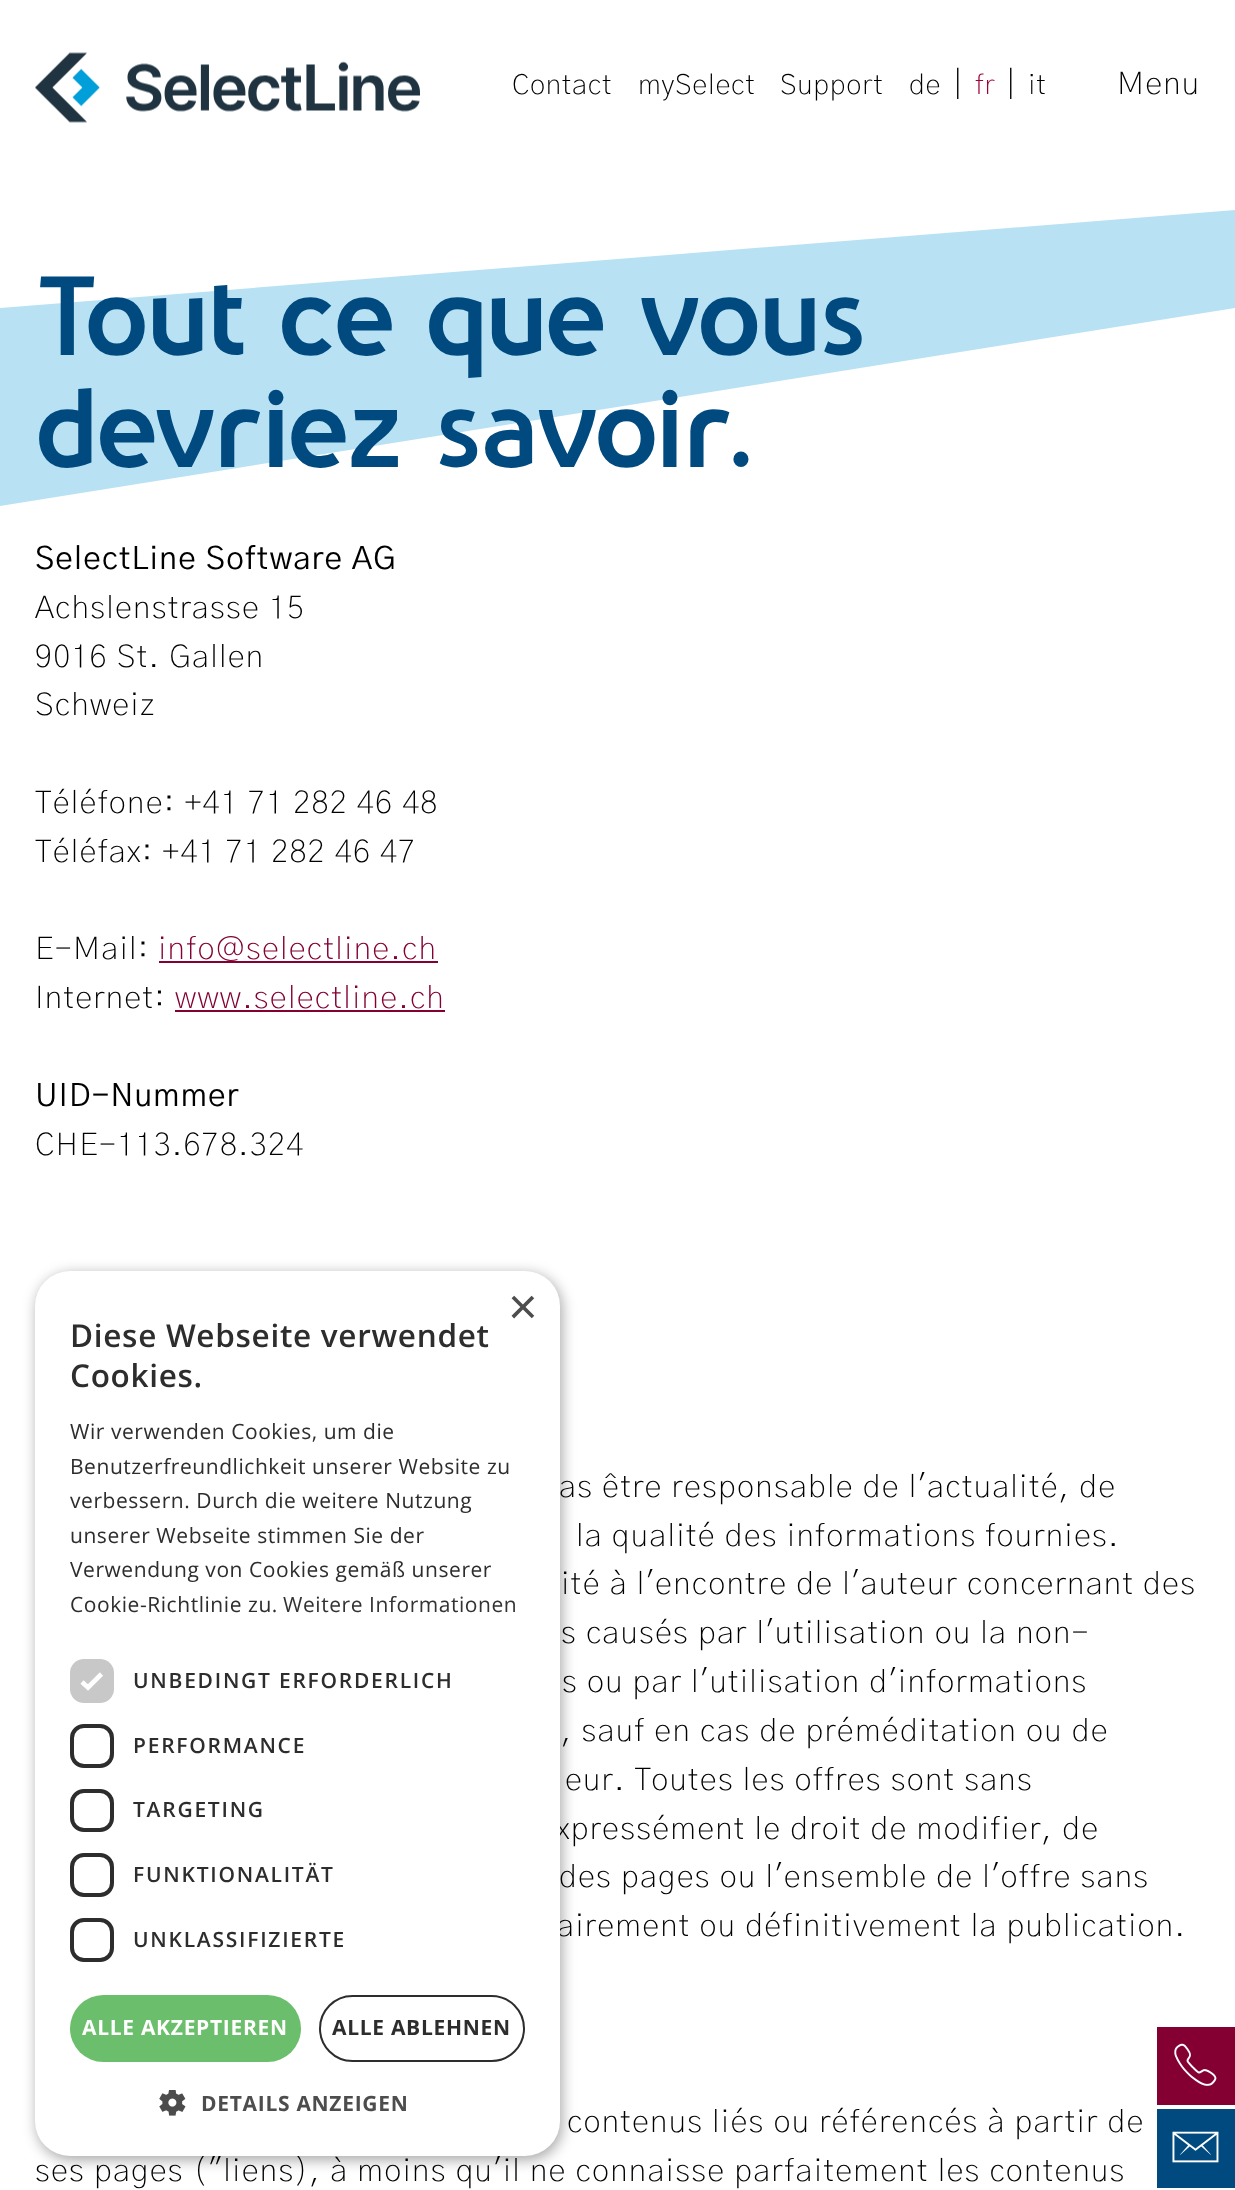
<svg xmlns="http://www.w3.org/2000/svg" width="1235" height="2190">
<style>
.a{font:300 28px 'Gothic A1';letter-spacing:0.75px;fill:#000}
.b{font:300 31.5px 'Gothic A1';letter-spacing:1.25px;fill:#000}
.c{font:300 28px 'Gothic A1';letter-spacing:0.75px;fill:#a00039}
.d{font:102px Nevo;letter-spacing:-0.4px;fill:#004a7f}
.e{font:31.5px 'Gothic A1';letter-spacing:1.25px;fill:#000}
.f{font:300 31.5px 'Gothic A1';letter-spacing:1.25px;fill:#840033}
.g{font:51px Liberation Sans;fill:#4d4d4d}
.h{font:600 31.5px Open Sans;letter-spacing:0.7px;fill:#2d2d2d}
.i{font:21px Open Sans;letter-spacing:0.55px;fill:#2d2d2d}
.j{font:21px Open Sans;letter-spacing:0.55px;fill:#333}
.k{font:600 21px Open Sans;letter-spacing:1.75px;fill:#2d2d2d}
.l{font:bold 21px Open Sans;letter-spacing:0.7px;fill:#fff}
.m{font:bold 21px Open Sans;letter-spacing:0.7px;fill:#2d2d2d}
.n{font:bold 21px Open Sans;letter-spacing:0.7px;fill:#4d4d4d}
</style>
<rect width="100%" height="100%" fill="#fff"/>
<image href="1.png" x="35" y="52" width="385" height="71"/>
<path fill="#b8e2f4" fill-rule="evenodd" d="M1235 210l-1235 98v198l1235-198z"/>
<path fill="#840033" d="M159 961h279v2H159z"/>
<path fill="#840033" d="M175 1010h270v2H175z"/>
<rect fill="#00000059" filter="blur(7px)" x="37" y="1274" width="525" height="886" rx="35"/>
<path fill="#840033" d="M1157 2027h78v78H1157z"/>
<image href="3.png" x="1174" y="2043" width="43" height="43"/>
<path fill="#004a7f" d="M1157 2109h78v79H1157z"/>
<image href="4.png" x="1172" y="2131" width="47" height="32"/>
<text class="a" x="512" y="94">Contact</text>
<text class="a" x="638" y="94">mySelect</text>
<text class="a" x="780" y="94">Support</text>
<text class="a" x="909" y="94">de</text>
<text class="b" x="954" y="94">|</text>
<text class="c" x="975" y="94">fr</text>
<text class="b" x="1007" y="94">|</text>
<text class="a" x="1028" y="94">it</text>
<text class="b" x="1117" y="94">Menu</text>
<text class="d" x="35" y="355">Tout ce que vous</text>
<text class="d" x="35" y="467">devriez savoir.</text>
<text class="e" x="35" y="569">SelectLine Software AG</text>
<text class="b" x="35" y="618">Achslenstrasse 15</text>
<text class="b" x="35" y="667">9016 St. Gallen</text>
<text class="b" x="35" y="715">Schweiz</text>
<text class="b" x="35" y="813">Téléfone: +41 71 282 46 48</text>
<text class="b" x="35" y="862">Téléfax: +41 71 282 46 47</text>
<text class="b" x="35" y="959">E-Mail:</text>
<text class="f" x="158" y="959">info@selectline.ch</text>
<text class="b" x="35" y="1008">Internet:</text>
<text class="f" x="175" y="1008">www.selectline.ch</text>
<text class="e" x="35" y="1106">UID-Nummer</text>
<text class="b" x="35" y="1155">CHE-113.678.324</text>
<text class="b" x="559" y="1497">as être responsable de l'actualité, de</text>
<text class="b" x="576" y="1546">la qualité des informations fournies.</text>
<text class="b" x="561" y="1594">ité à l'encontre de l'auteur concernant des</text>
<text class="b" x="561" y="1643">s causés par l'utilisation ou la non-</text>
<text class="b" x="562" y="1692">s ou par l'utilisation d'informations</text>
<text class="b" x="561" y="1741">, sauf en cas de préméditation ou de</text>
<text class="b" x="565" y="1790">eur. Toutes les offres sont sans</text>
<text class="b" x="556" y="1839">xpressément le droit de modifier, de</text>
<text class="b" x="559" y="1887">des pages ou l'ensemble de l'offre sans</text>
<text class="b" x="557" y="1936">airement ou définitivement la publication.</text>
<text class="b" x="567" y="2132">contenus liés ou référencés à partir de</text>
<text class="b" x="35" y="2181">ses pages ("liens), à moins qu'il ne connaisse parfaitement les contenus</text>
<rect fill="#fff" x="35" y="1271" width="525" height="885" rx="35"/>
<text class="g" x="508" y="1324">×</text>
<text class="h" x="70" y="1347">Diese Webseite verwendet</text>
<text class="h" x="70" y="1387">Cookies.</text>
<text class="i" x="70" y="1439">Wir verwenden Cookies, um die</text>
<text class="i" x="70" y="1474">Benutzerfreundlichkeit unserer Website zu</text>
<text class="i" x="70" y="1508">verbessern. Durch die weitere Nutzung</text>
<text class="i" x="70" y="1543">unserer Webseite stimmen Sie der</text>
<text class="i" x="70" y="1577">Verwendung von Cookies gemäß unserer</text>
<text class="i" x="70" y="1612">Cookie-Richtlinie zu.</text>
<text class="j" x="283" y="1612">Weitere Informationen</text>
<rect fill="#c8c8c8" x="70" y="1659" width="44" height="44" rx="14"/>
<path fill="none" stroke="#fff" stroke-width="4.6" d="M82 1682l6 5.5l13.5-13.5"/>
<text class="k" x="133" y="1688">UNBEDINGT ERFORDERLICH</text>
<rect fill="none" stroke="#2d2d2d" stroke-width="4" x="72" y="1726" width="40" height="40" rx="12"/>
<text class="k" x="133" y="1753">PERFORMANCE</text>
<rect fill="none" stroke="#2d2d2d" stroke-width="4" x="72" y="1791" width="40" height="39" rx="12"/>
<text class="k" x="133" y="1817">TARGETING</text>
<rect fill="none" stroke="#2d2d2d" stroke-width="4" x="72" y="1855" width="40" height="40" rx="12"/>
<text class="k" x="133" y="1882">FUNKTIONALITÄT</text>
<rect fill="none" stroke="#2d2d2d" stroke-width="4" x="72" y="1920" width="40" height="40" rx="12"/>
<text class="k" x="133" y="1947">UNKLASSIFIZIERTE</text>
<rect fill="#6bbe6b" x="70" y="1995" width="231" height="67" rx="33.5"/>
<text class="l" x="82" y="2035">ALLE AKZEPTIEREN</text>
<rect fill="none" stroke="#2d2d2d" stroke-width="2" x="320" y="1996" width="204" height="65" rx="32.5"/>
<text class="m" x="332" y="2035">ALLE ABLEHNEN</text>
<image href="2.png" x="159" y="2090" width="27" height="26"/>
<text class="n" x="201" y="2111">DETAILS ANZEIGEN</text>
</svg>
